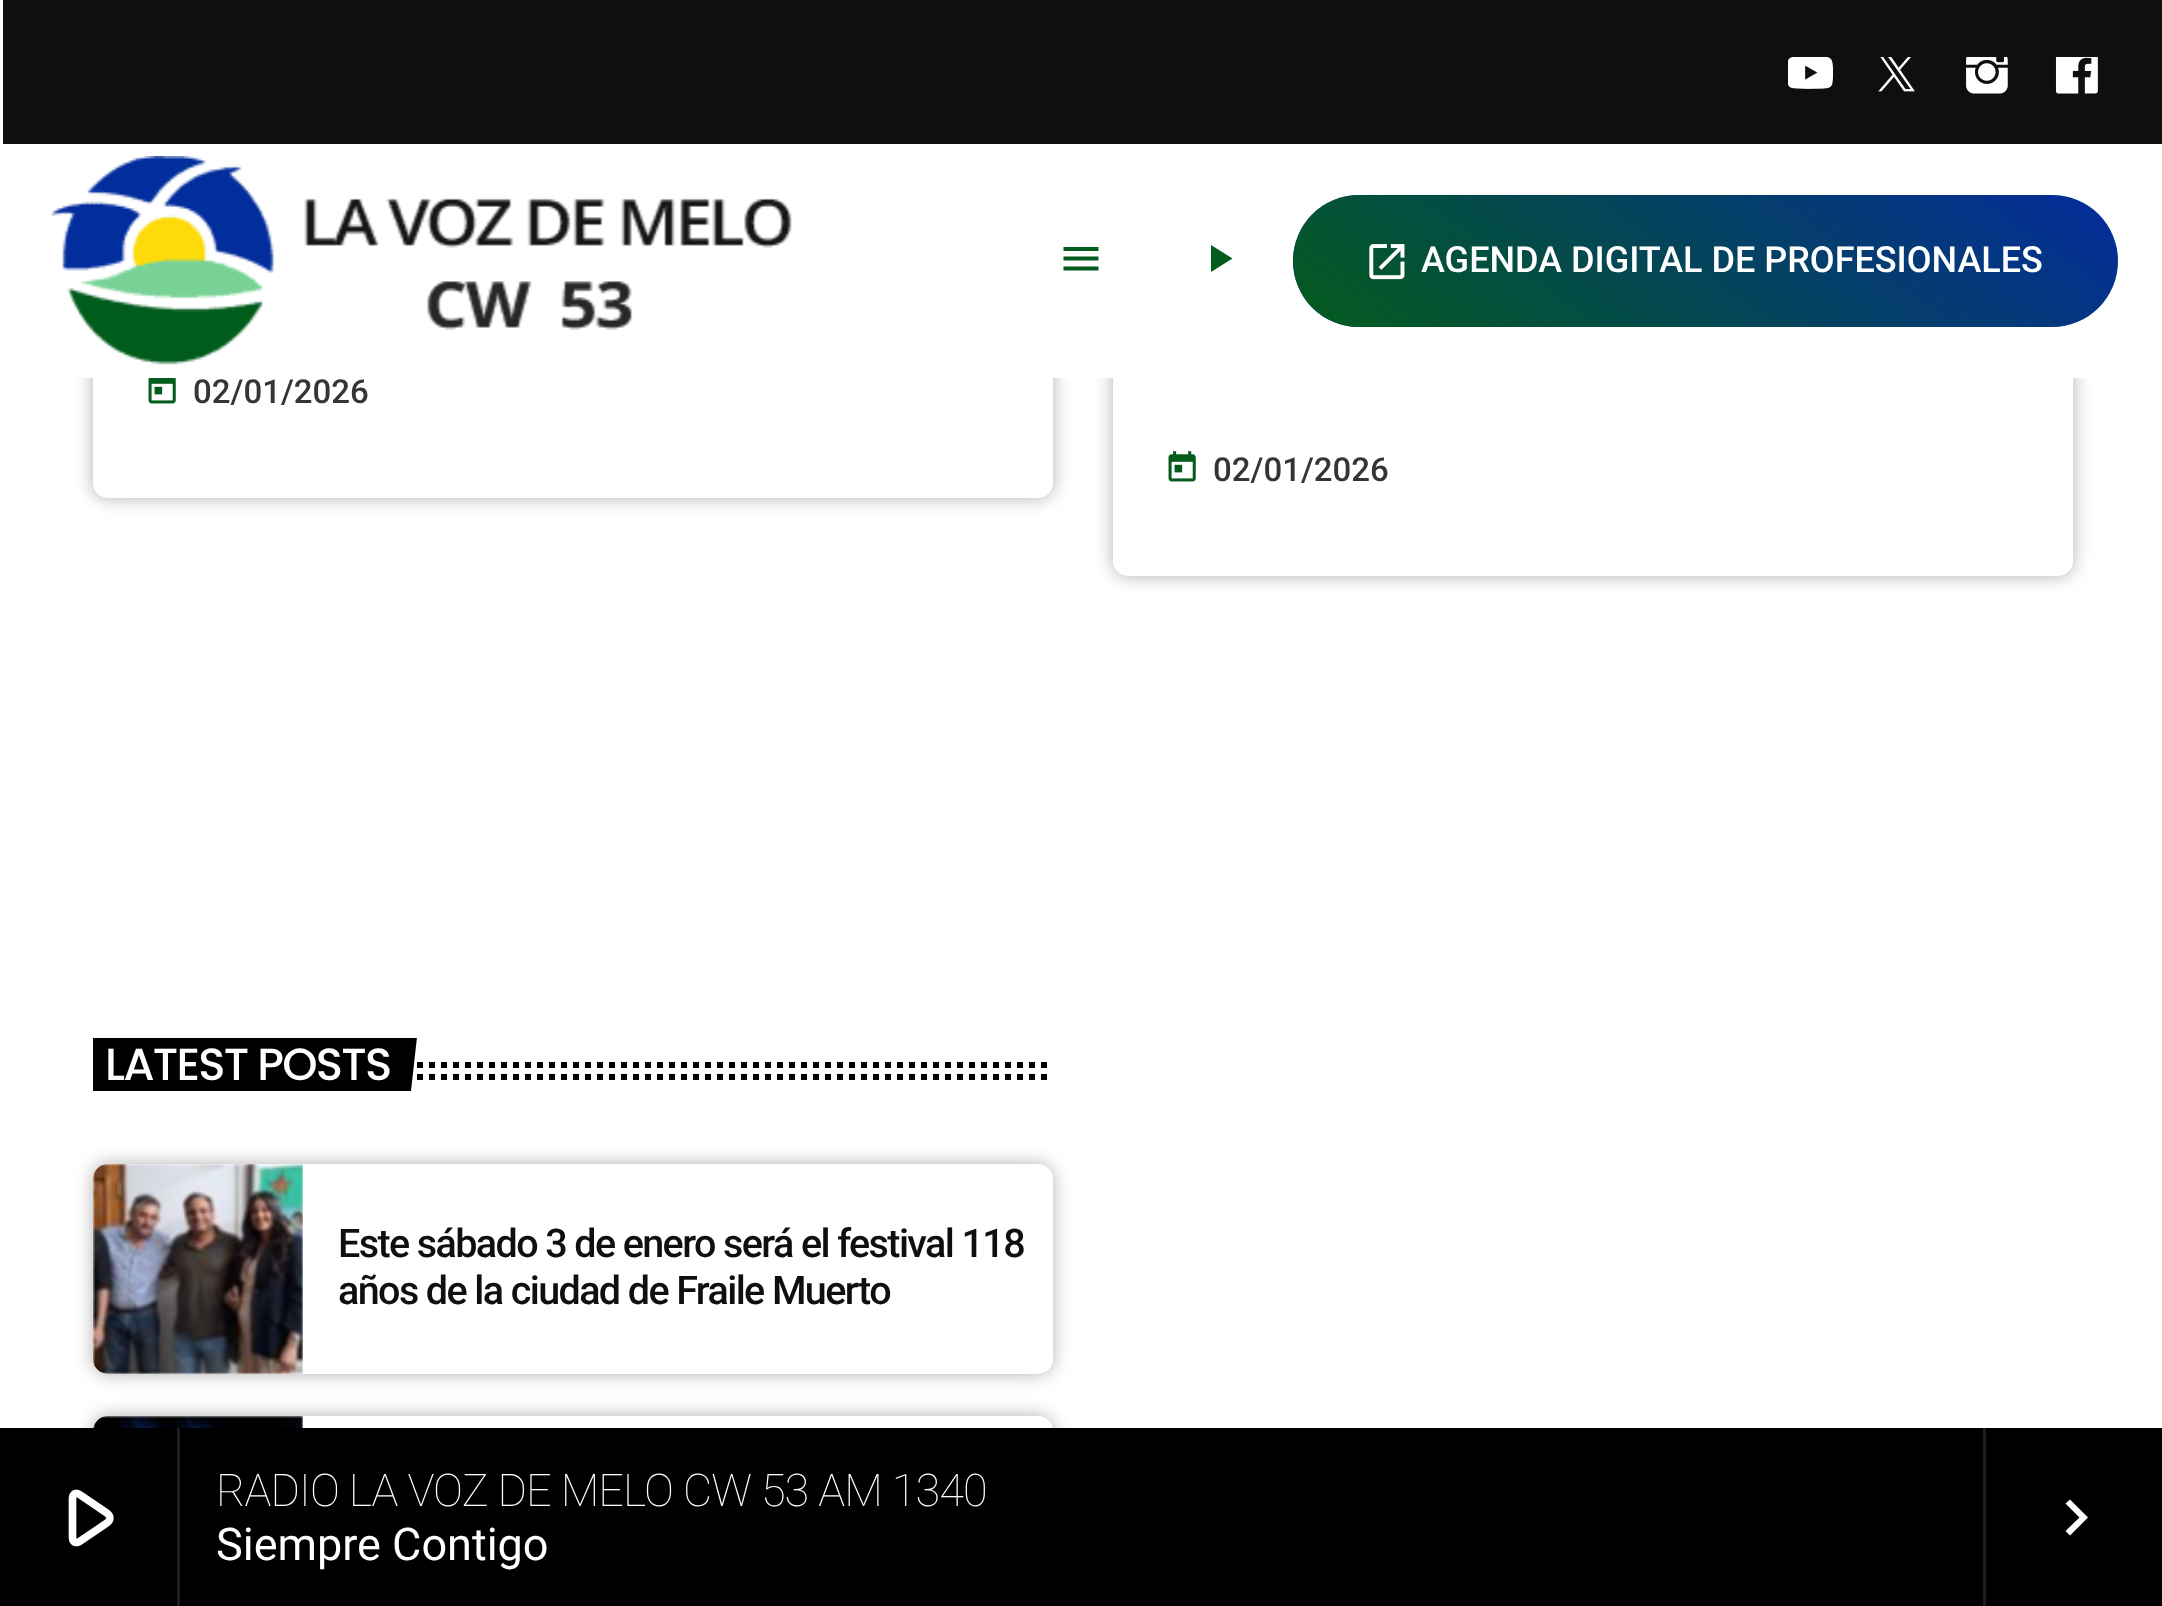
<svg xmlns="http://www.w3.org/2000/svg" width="2162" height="1606">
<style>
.a{font:500 36px Roboto;fill:#fff}
.b{font:500 33px Roboto;fill:#353535}
.c{font:500 45px Poppins;letter-spacing:-1.75px;fill:#fff}
.d{font:500 39.5px Roboto;letter-spacing:-1.6px;fill:#0f0f0f}
.e{font:100 45px Roboto;letter-spacing:-0.9px;fill:#fff}
.f{font:45px Roboto;fill:#fff}
</style>
<defs>
<linearGradient id="g1" gradientUnits="userSpaceOnUse" x1="1871" y1="23" x2="1537" y2="499"><stop offset="0" stop-color="#045c1c" stop-opacity="0"/><stop offset="1" stop-color="#045c1c"/></linearGradient>
<clipPath id="clip1"><path d="M93 1038h327v54H93z"/></clipPath>
</defs>
<rect width="100%" height="100%" fill="#fff"/>
<rect fill="#0000004f" filter="blur(9px)" x="93" y="-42" width="960" height="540" rx="15"/>
<rect fill="#fff" x="93" y="-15" width="960" height="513" rx="15"/>
<rect fill="#0000004f" filter="blur(9px)" x="1113" y="-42" width="960" height="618" rx="15"/>
<rect fill="#fff" x="1113" y="-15" width="960" height="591" rx="15"/>
<path fill="#fff" d="M76 144h2014v234H76z"/>
<path fill="#0f0f0f" d="M3 0h2159v144H3z"/>
<image href="1.png" x="1788" y="57" width="45" height="32"/>
<image href="2.png" x="1878" y="57" width="37" height="35"/>
<image href="3.png" x="1966" y="57" width="42" height="37"/>
<image href="4.png" x="2055" y="57" width="43" height="37"/>
<image href="5.png" x="51" y="156" width="741" height="209"/>
<path fill="#045c1c" d="M1063.5 247h35v4h-35zm0 13.5v-4h35v4zm0 10v-4h35v4z"/>
<path fill="#045c1c" d="M1211 245l21.5 13.5l-21.5 13.5z"/>
<rect fill="#042c9c" x="1293" y="195" width="825" height="132" rx="66"/>
<rect fill="url(#g1)" x="1293" y="195" width="825" height="132" rx="66"/>
<image href="6.png" x="1369" y="244" width="36" height="36"/>
<image href="7.png" x="148" y="378" width="28" height="26"/>
<image href="8.png" x="1168" y="451" width="28" height="31"/>
<path fill="none" stroke="#000" stroke-width="6" stroke-dasharray="6 6" d="M105 1065h948"/>
<path fill="none" stroke="#000" stroke-width="6" stroke-dasharray="6 6" d="M105 1077h948"/>
<g clip-path="url(#clip1)">
<path fill="#000" d="M79 1037h338l-6 54h-339z"/>
</g>
<rect fill="#0000004f" filter="blur(9px)" x="93" y="1164" width="960" height="210" rx="15"/>
<rect fill="#fff" x="93" y="1164" width="960" height="210" rx="15"/>
<image href="9.png" x="93" y="1164" width="210" height="210"/>
<rect fill="#0000004f" filter="blur(9px)" x="93" y="1416" width="960" height="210" rx="15"/>
<rect fill="#fff" x="93" y="1416" width="960" height="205" rx="15"/>
<image href="10.png" x="93" y="1416" width="210" height="12"/>
<path fill="#000" d="M0 1428h2162v178H0z"/>
<path fill="#1e1e1e" d="M177 1428h3v178H177z"/>
<image href="11.png" x="68" y="1489" width="46" height="58"/>
<path fill="#1e1e1e" d="M1983 1428h3v178H1983z"/>
<path fill="#fff" d="M2065.5 1531l14-13.5l-14-14l4.5-4l18 18l-18 18z"/>
<text class="a" x="1421" y="272">AGENDA DIGITAL DE PROFESIONALES</text>
<text class="b" x="193" y="403">02/01/2026</text>
<text class="b" x="1213" y="481">02/01/2026</text>
<text class="c" x="105" y="1080">LATEST POSTS</text>
<text class="d" x="338" y="1257">Este sábado 3 de enero será el festival 118</text>
<text class="d" x="338" y="1304">años de la ciudad de Fraile Muerto</text>
<text class="e" x="216" y="1506">RADIO LA VOZ DE MELO CW 53 AM 1340</text>
<text class="f" x="216" y="1560">Siempre Contigo</text>
</svg>
